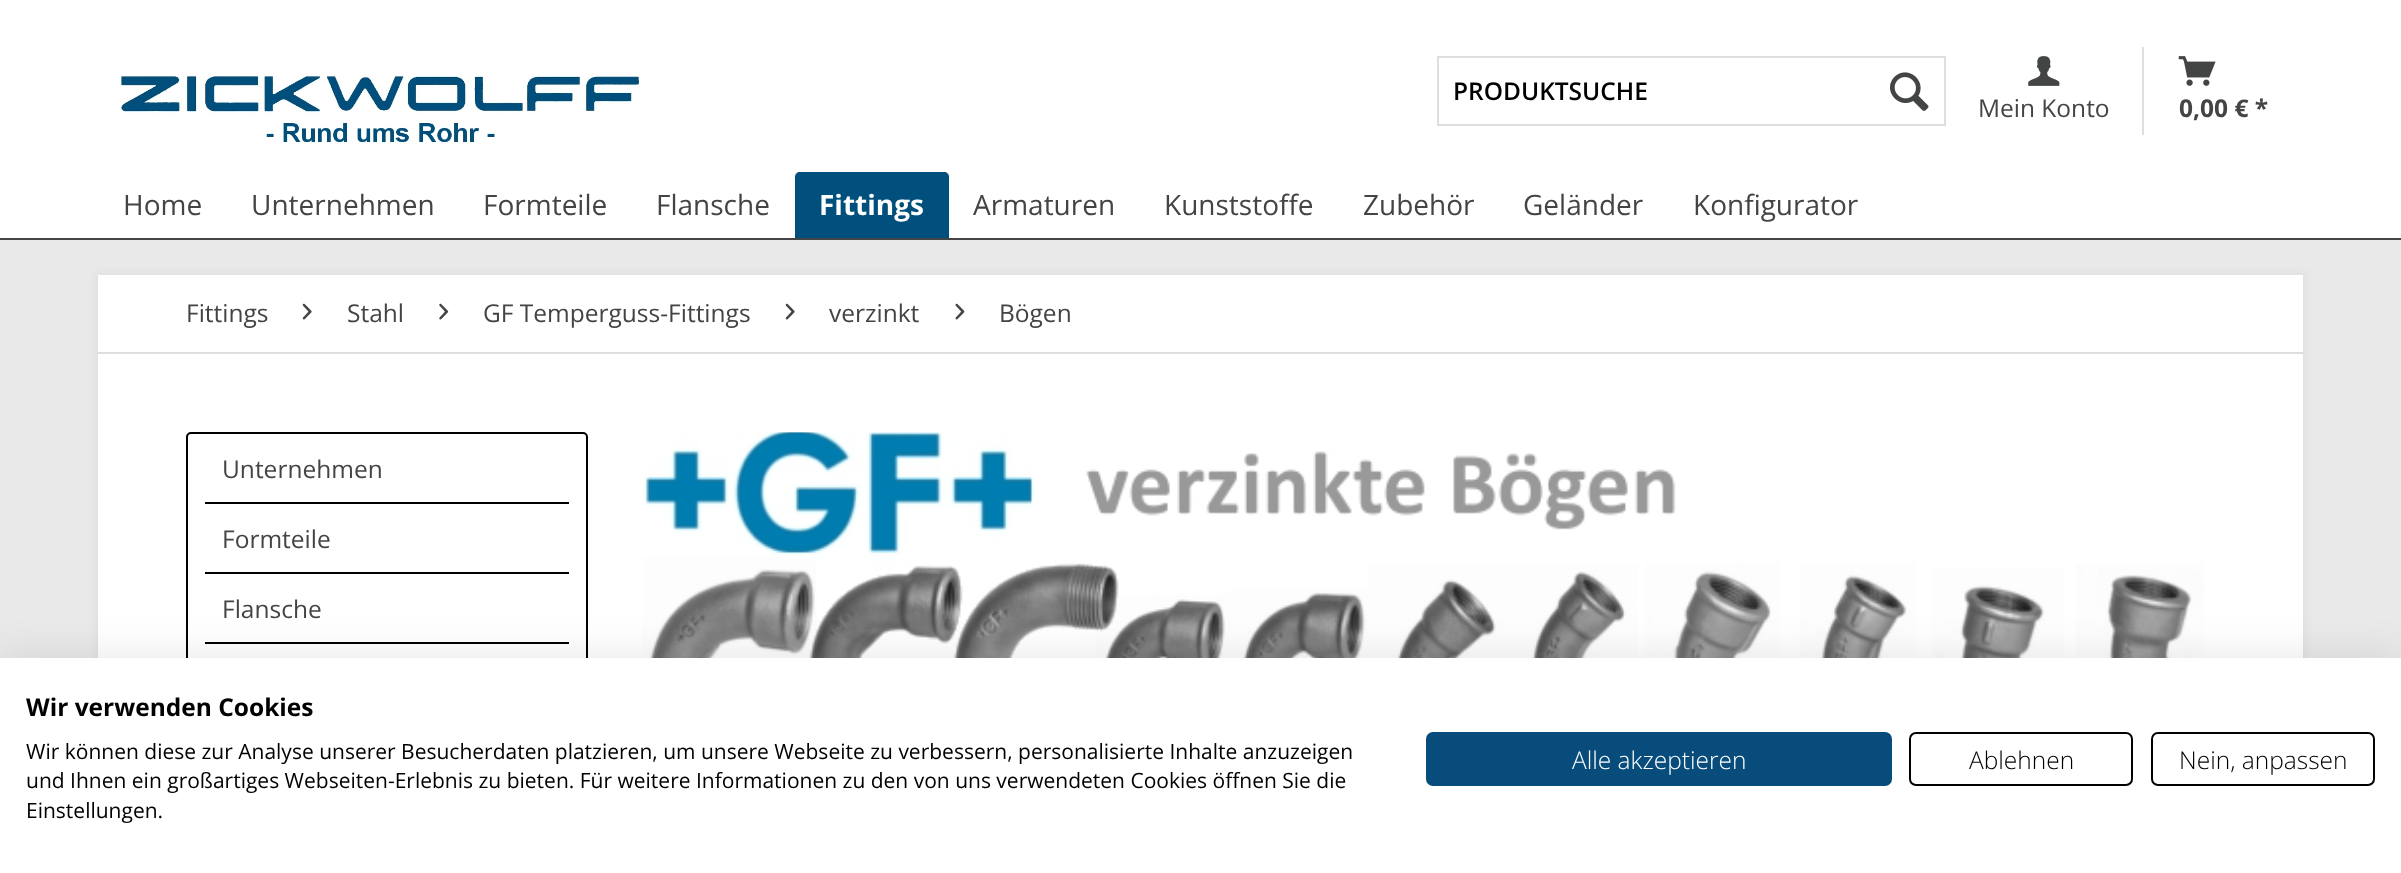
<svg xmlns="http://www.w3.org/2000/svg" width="2401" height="873">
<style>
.a{font:600 24.5px Open Sans;fill:#000}
.b{font:24.5px Open Sans;fill:#434444}
.c{font:bold 24.5px Open Sans;fill:#434444}
.d{font:28px Open Sans;fill:#434444}
.e{font:bold 28px Open Sans;fill:#fff}
.f{font:bold 24.5px Open Sans;fill:#000}
.g{font:21px Open Sans;fill:#000}
.h{font:300 24.5px Open Sans;fill:#fff}
.i{font:300 24.5px Open Sans;fill:#000}
</style>
<rect width="100%" height="100%" fill="#e9e9e9"/>
<path fill="#fff" d="M0 0h2401v238H0z"/>
<image href="1.png" x="120" y="75" width="520" height="68"/>
<path fill="none" stroke="#dedede" stroke-width="2" d="M1438 57h507v68H1438z"/>
<image href="2.png" x="1890" y="72" width="39" height="39"/>
<image href="3.png" x="2028" y="56" width="32" height="30"/>
<path fill="#dedede" d="M2142 47h2v88H2142z"/>
<image href="4.png" x="2178" y="56" width="38" height="30"/>
<path fill="#434444" d="M0 238h2401v2H0z"/>
<path fill="#004f7c" d="M800 172h144c3 0 5 2 5 5v61h-154v-61c0-3 2-5 5-5z"/>
<path fill="#dedede" filter="blur(3.5px)" d="M96 273h2209v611H96z"/>
<path fill="#fff" d="M98 275h2205v383H98z"/>
<path fill="#dedede" d="M98 352h2205v2H98z"/>
<image href="5.png" x="302" y="303" width="10" height="17"/>
<image href="6.png" x="439" y="303" width="10" height="17"/>
<image href="5.png" x="785" y="303" width="10" height="17"/>
<image href="7.png" x="955" y="303" width="10" height="17"/>
<rect fill="none" stroke="#000" stroke-width="2" x="187" y="433" width="400" height="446" rx="4"/>
<path fill="#000" d="M205 502h364v2H205z"/>
<path fill="#000" d="M205 572h364v2H205z"/>
<path fill="#000" d="M205 642h364v2H205z"/>
<image href="8.png" x="643" y="432" width="1561" height="226"/>
<path fill="#0000001a" filter="blur(21px)" d="M0 658h2401v215H0z"/>
<path fill="#fff" d="M0 658h2401v215H0z"/>
<rect fill="#084c7c" stroke="#084c7c" stroke-width="2" x="1427" y="733" width="464" height="52" rx="6"/>
<rect fill="none" stroke="#000" stroke-width="2" x="1910" y="733" width="222" height="52" rx="6"/>
<rect fill="none" stroke="#000" stroke-width="2" x="2152" y="733" width="222" height="52" rx="6"/>
<text class="a" x="1453" y="100">PRODUKTSUCHE</text>
<text class="b" x="1978" y="117">Mein Konto</text>
<text class="c" x="2179" y="117">0,00 € *</text>
<text class="d" x="123" y="215">Home</text>
<text class="d" x="251" y="215">Unternehmen</text>
<text class="d" x="483" y="215">Formteile</text>
<text class="d" x="656" y="215">Flansche</text>
<text class="e" x="819" y="215">Fittings</text>
<text class="d" x="973" y="215">Armaturen</text>
<text class="d" x="1164" y="215">Kunststoffe</text>
<text class="d" x="1363" y="215">Zubehör</text>
<text class="d" x="1523" y="215">Geländer</text>
<text class="d" x="1693" y="215">Konfigurator</text>
<text class="b" x="186" y="322">Fittings</text>
<text class="b" x="347" y="322">Stahl</text>
<text class="b" x="483" y="322">GF Temperguss-Fittings</text>
<text class="b" x="829" y="322">verzinkt</text>
<text class="b" x="999" y="322">Bögen</text>
<text class="b" x="222" y="478">Unternehmen</text>
<text class="b" x="222" y="548">Formteile</text>
<text class="b" x="222" y="618">Flansche</text>
<text class="f" x="26" y="716">Wir verwenden Cookies</text>
<text class="g" x="26" y="759">Wir können diese zur Analyse unserer Besucherdaten platzieren, um unsere Webseite zu verbessern, personalisierte Inhalte anzuzeigen</text>
<text class="g" x="26" y="788">und Ihnen ein großartiges Webseiten-Erlebnis zu bieten. Für weitere Informationen zu den von uns verwendeten Cookies öffnen Sie die</text>
<text class="g" x="26" y="818">Einstellungen.</text>
<text class="h" x="1572" y="769">Alle akzeptieren</text>
<text class="i" x="1969" y="769">Ablehnen</text>
<text class="i" x="2179" y="769">Nein, anpassen</text>
</svg>
